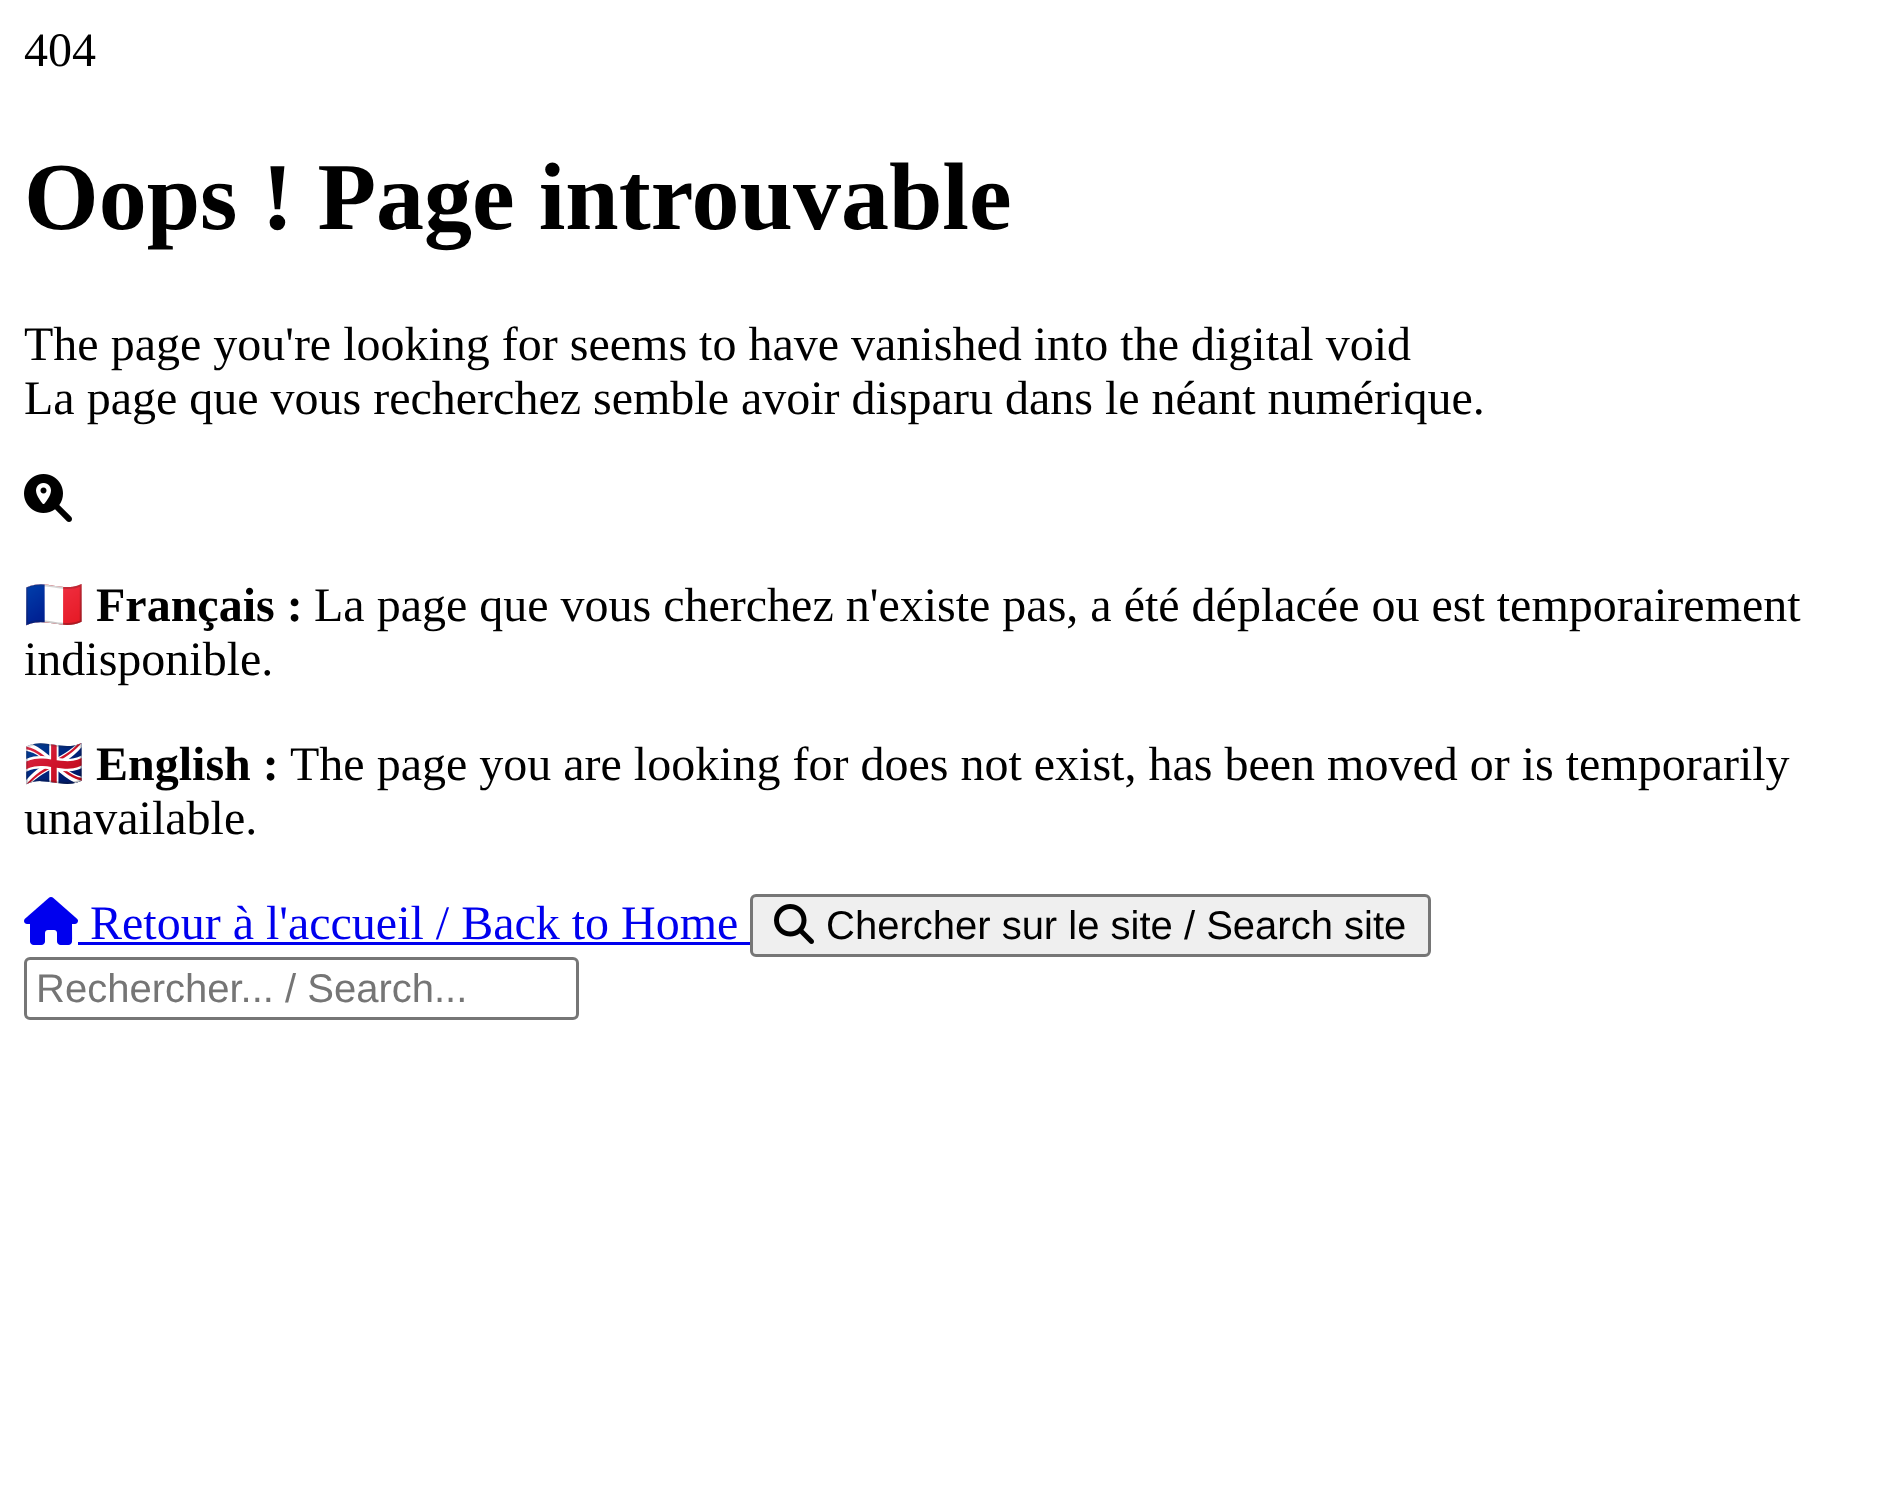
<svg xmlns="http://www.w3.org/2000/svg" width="1888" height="1506">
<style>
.a{font:48px Liberation Serif;fill:#000}
.b{font:bold 96px Liberation Serif;fill:#000}
.c{font:bold 48px Noto Color Emoji;fill:#000}
.d{font:bold 48px Liberation Serif;fill:#000}
.e{font:48px Liberation Serif;fill:#00e}
.f{font:40px Liberation Sans;fill:#000}
.g{font:40px Liberation Sans;fill:#757575}
</style>
<rect width="100%" height="100%" fill="#fff"/>
<image href="1.png" x="24" y="474" width="48" height="48"/>
<image href="2.png" x="24" y="897" width="54" height="48"/>
<path fill="#00e" d="M78 942h672v3H78z"/>
<rect fill="#efefef" stroke="#767676" stroke-width="3" x="751.5" y="895.5" width="678" height="60" rx="4.5"/>
<image href="3.png" x="774" y="904" width="40" height="40"/>
<rect fill="none" stroke="#767676" stroke-width="3" x="25.5" y="958.5" width="552" height="60" rx="4.5"/>
<text class="a" x="24" y="66">404</text>
<text class="b" x="24" y="229">Oops ! Page introuvable</text>
<text class="a" x="24" y="360">The page you're looking for seems to have vanished into the digital void</text>
<text class="a" x="24" y="414">La page que vous recherchez semble avoir disparu dans le néant numérique.</text>
<text class="c" x="24" y="621">🇫🇷</text>
<text class="d" x="96" y="621">Français :</text>
<text class="a" x="314" y="621">La page que vous cherchez n'existe pas, a été déplacée ou est temporairement</text>
<text class="a" x="24" y="675">indisponible.</text>
<text class="c" x="24" y="780">🇬🇧</text>
<text class="d" x="96" y="780">English :</text>
<text class="a" x="290" y="780">The page you are looking for does not exist, has been moved or is temporarily</text>
<text class="a" x="24" y="834">unavailable.</text>
<text class="e" x="90" y="939">Retour à l'accueil / Back to Home</text>
<text class="f" x="826" y="939">Chercher sur le site / Search site</text>
<text class="g" x="36" y="1002">Rechercher... / Search...</text>
</svg>
